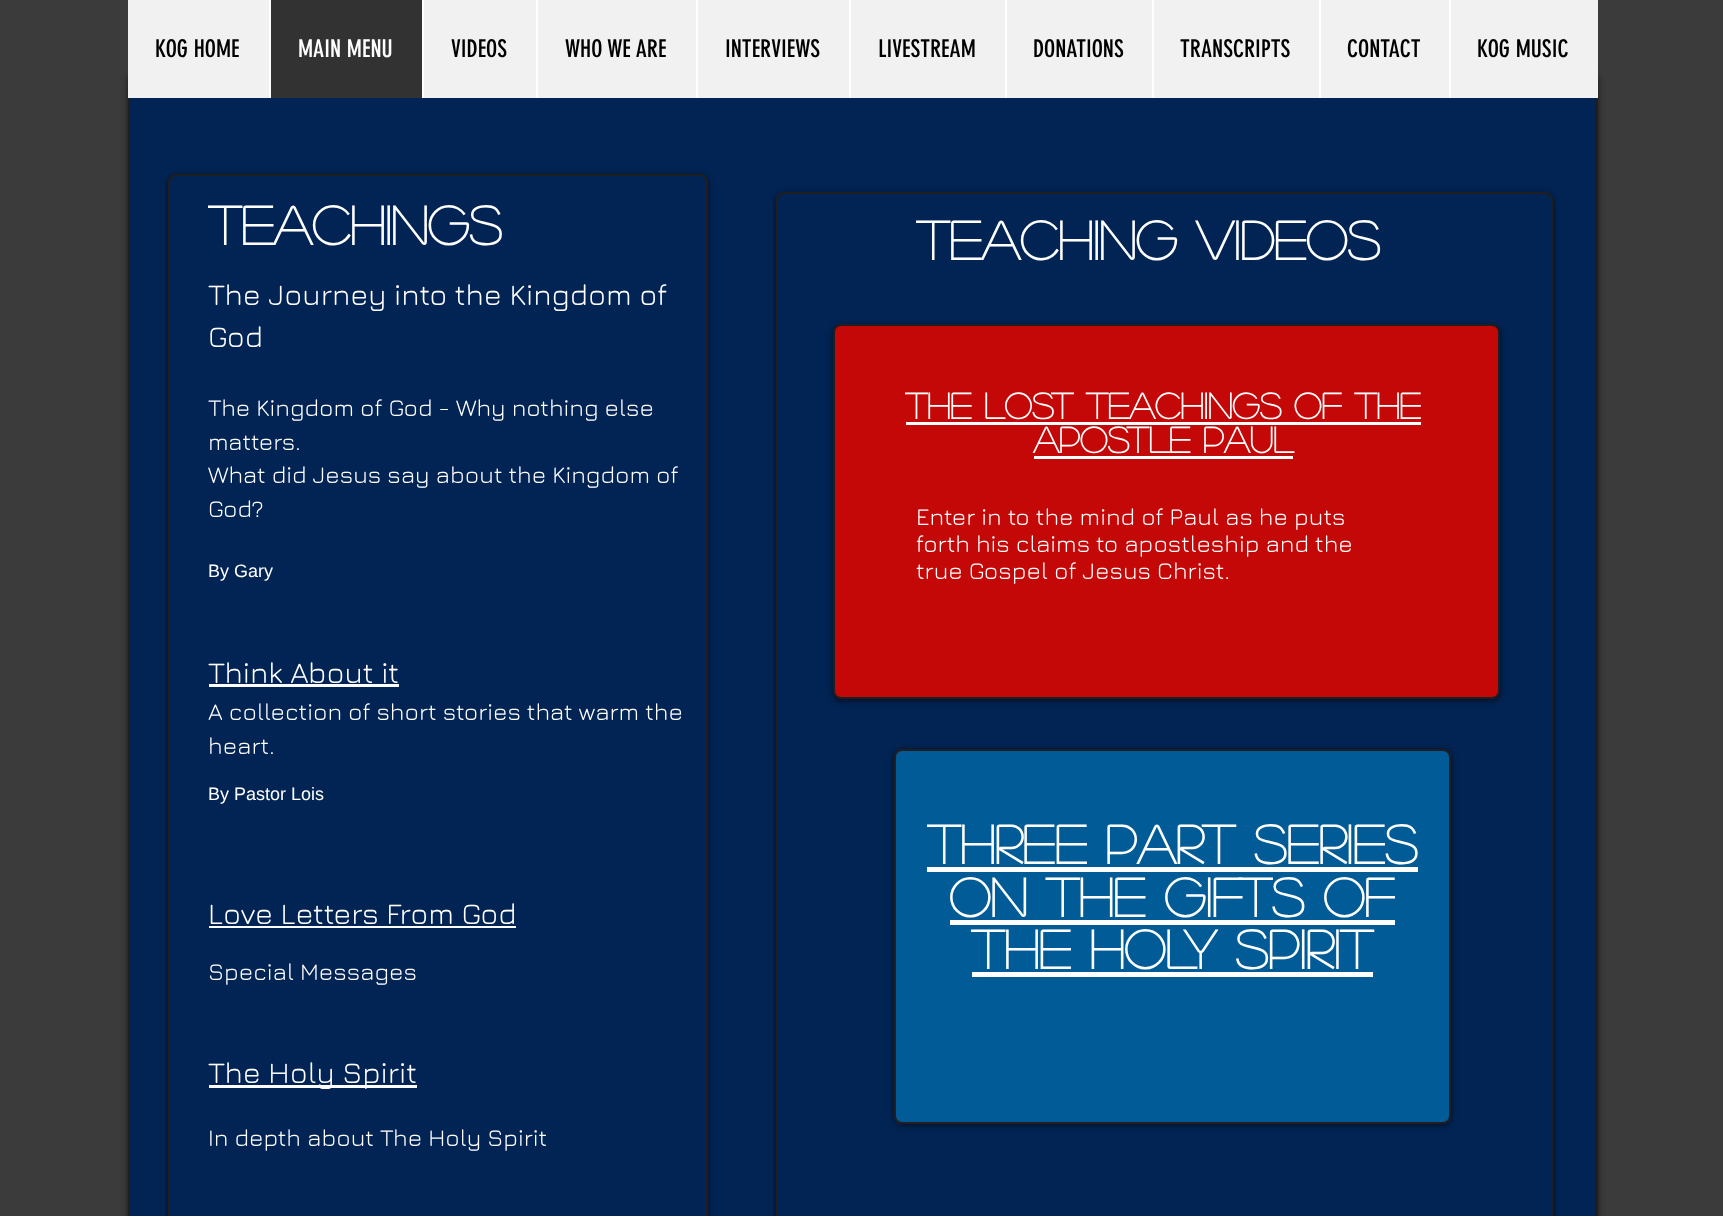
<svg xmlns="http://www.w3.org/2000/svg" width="1723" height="1216">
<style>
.a{font:24px 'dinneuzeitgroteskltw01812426';fill:#000}
.b{font:24px 'dinneuzeitgroteskltw01812426';fill:#fff}
.c{font:bold 54px 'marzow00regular';fill:#fff}
.d{font:bold 36px 'marzow00regular';fill:#fff}
.e{font:24px Jura;fill:#fff}
.f{font:30px Jura;fill:#fff}
.g{font:18px Liberation Sans;fill:#fff}
</style>
<defs>
<clipPath id="clip1"><path d="M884 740h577v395h-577zm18 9h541c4.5 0 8 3.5 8 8v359c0 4.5-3.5 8-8 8h-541c-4.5 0-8-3.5-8-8v-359c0-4.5 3.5-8 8-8z" clip-rule="evenodd"/></clipPath>
</defs>
<rect width="100%" height="100%" fill="#3b3b3b"/>
<rect fill="#00000099" filter="blur(3px)" x="128" y="74" width="1470" height="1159" rx="8"/>
<path fill="#022454" d="M130 98h1466v1118H130z"/>
<path fill="none" stroke="#201e1e" stroke-width="2" d="M129 73h1468v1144H129z"/>
<path fill="#f1f1f1" d="M128 0h1470v98H128z"/>
<path fill="#323232" d="M271 0h151v98H271z"/>
<path fill="#fff" d="M269 0h2v98H269z"/>
<path fill="#fff" d="M422 0h2v98H422z"/>
<path fill="#fff" d="M536 0h2v98H536z"/>
<path fill="#fff" d="M696 0h2v98H696z"/>
<path fill="#fff" d="M849 0h2v98H849z"/>
<path fill="#fff" d="M1005 0h2v98H1005z"/>
<path fill="#fff" d="M1152 0h2v98H1152z"/>
<path fill="#fff" d="M1319 0h2v98H1319z"/>
<path fill="#fff" d="M1449 0h2v98H1449z"/>
<rect fill="#00000099" filter="blur(3px)" x="168" y="176" width="540" height="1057" rx="8"/>
<rect fill="#022454" stroke="#201e1e" stroke-width="2" x="169" y="175" width="538" height="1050" rx="7"/>
<rect fill="#00000099" filter="blur(3px)" x="776" y="194" width="777" height="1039" rx="8"/>
<rect fill="#022454" stroke="#201e1e" stroke-width="2" x="777" y="193" width="775" height="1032" rx="7"/>
<rect fill="#00000099" filter="blur(3px)" x="833" y="326" width="667" height="375" rx="8"/>
<rect fill="#c40707" stroke="#201e1e" stroke-width="2" x="834" y="325" width="665" height="373" rx="7"/>
<path fill="#fff" d="M906 422h515v3H906z"/>
<path fill="#fff" d="M1034 456h259v3H1034z"/>
<g clip-path="url(#clip1)">
<rect fill="#00000099" filter="blur(3px)" x="894" y="750" width="557" height="375" rx="8"/>
</g>
<rect fill="#0088cb8f" stroke="#201e1e" stroke-width="2" x="895" y="750" width="555" height="373" rx="7"/>
<path fill="#fff" d="M927 867h491v5H927z"/>
<path fill="#fff" d="M950 920h445v5H950z"/>
<path fill="#fff" d="M972 972h401v5H972z"/>
<path fill="#fff" d="M209 684h190v3H209z"/>
<path fill="#fff" d="M209 926h307v2H209z"/>
<path fill="#fff" d="M209 1085h208v3H209z"/>
<text class="a" x="155" y="57">KOG HOME</text>
<text class="b" x="298" y="57">MAIN MENU</text>
<text class="a" x="451" y="57">VIDEOS</text>
<text class="a" x="565" y="57">WHO WE ARE</text>
<text class="a" x="725" y="57">INTERVIEWS</text>
<text class="a" x="878" y="57">LIVESTREAM</text>
<text class="a" x="1033" y="57">DONATIONS</text>
<text class="a" x="1180" y="57">TRANSCRIPTS</text>
<text class="a" x="1347" y="57">CONTACT</text>
<text class="a" x="1477" y="57">KOG MUSIC</text>
<text class="c" x="208" y="245">Teachings</text>
<text class="c" x="916" y="260">Teaching Videos</text>
<text class="d" x="905" y="419">The Lost Teachings of The</text>
<text class="d" x="1033" y="453">Apostle Paul</text>
<text class="e" x="916" y="525">Enter in to the mind of Paul as he puts</text>
<text class="e" x="916" y="552">forth his claims to apostleship and the</text>
<text class="e" x="916" y="579">true Gospel of Jesus Christ.</text>
<text class="c" x="927" y="864">Three Part Series</text>
<text class="c" x="949" y="917">On The Gifts of</text>
<text class="c" x="971" y="969">THE HOLY SPIRIT</text>
<text class="f" x="208" y="305">The Journey into the Kingdom of</text>
<text class="f" x="208" y="347">God</text>
<text class="e" x="208" y="416">The Kingdom of God - Why nothing else</text>
<text class="e" x="208" y="450">matters.</text>
<text class="e" x="208" y="483">What did Jesus say about the Kingdom of</text>
<text class="e" x="208" y="517">God?</text>
<text class="g" x="208" y="577">By Gary</text>
<text class="f" x="208" y="683">Think About it</text>
<text class="e" x="208" y="720">A collection of short stories that warm the</text>
<text class="e" x="208" y="754">heart.</text>
<text class="g" x="208" y="800">By Pastor Lois</text>
<text class="f" x="208" y="924">Love Letters From God</text>
<text class="e" x="208" y="980">Special Messages</text>
<text class="f" x="208" y="1083">The Holy Spirit</text>
<text class="e" x="208" y="1146">In depth about The Holy Spirit</text>
</svg>
